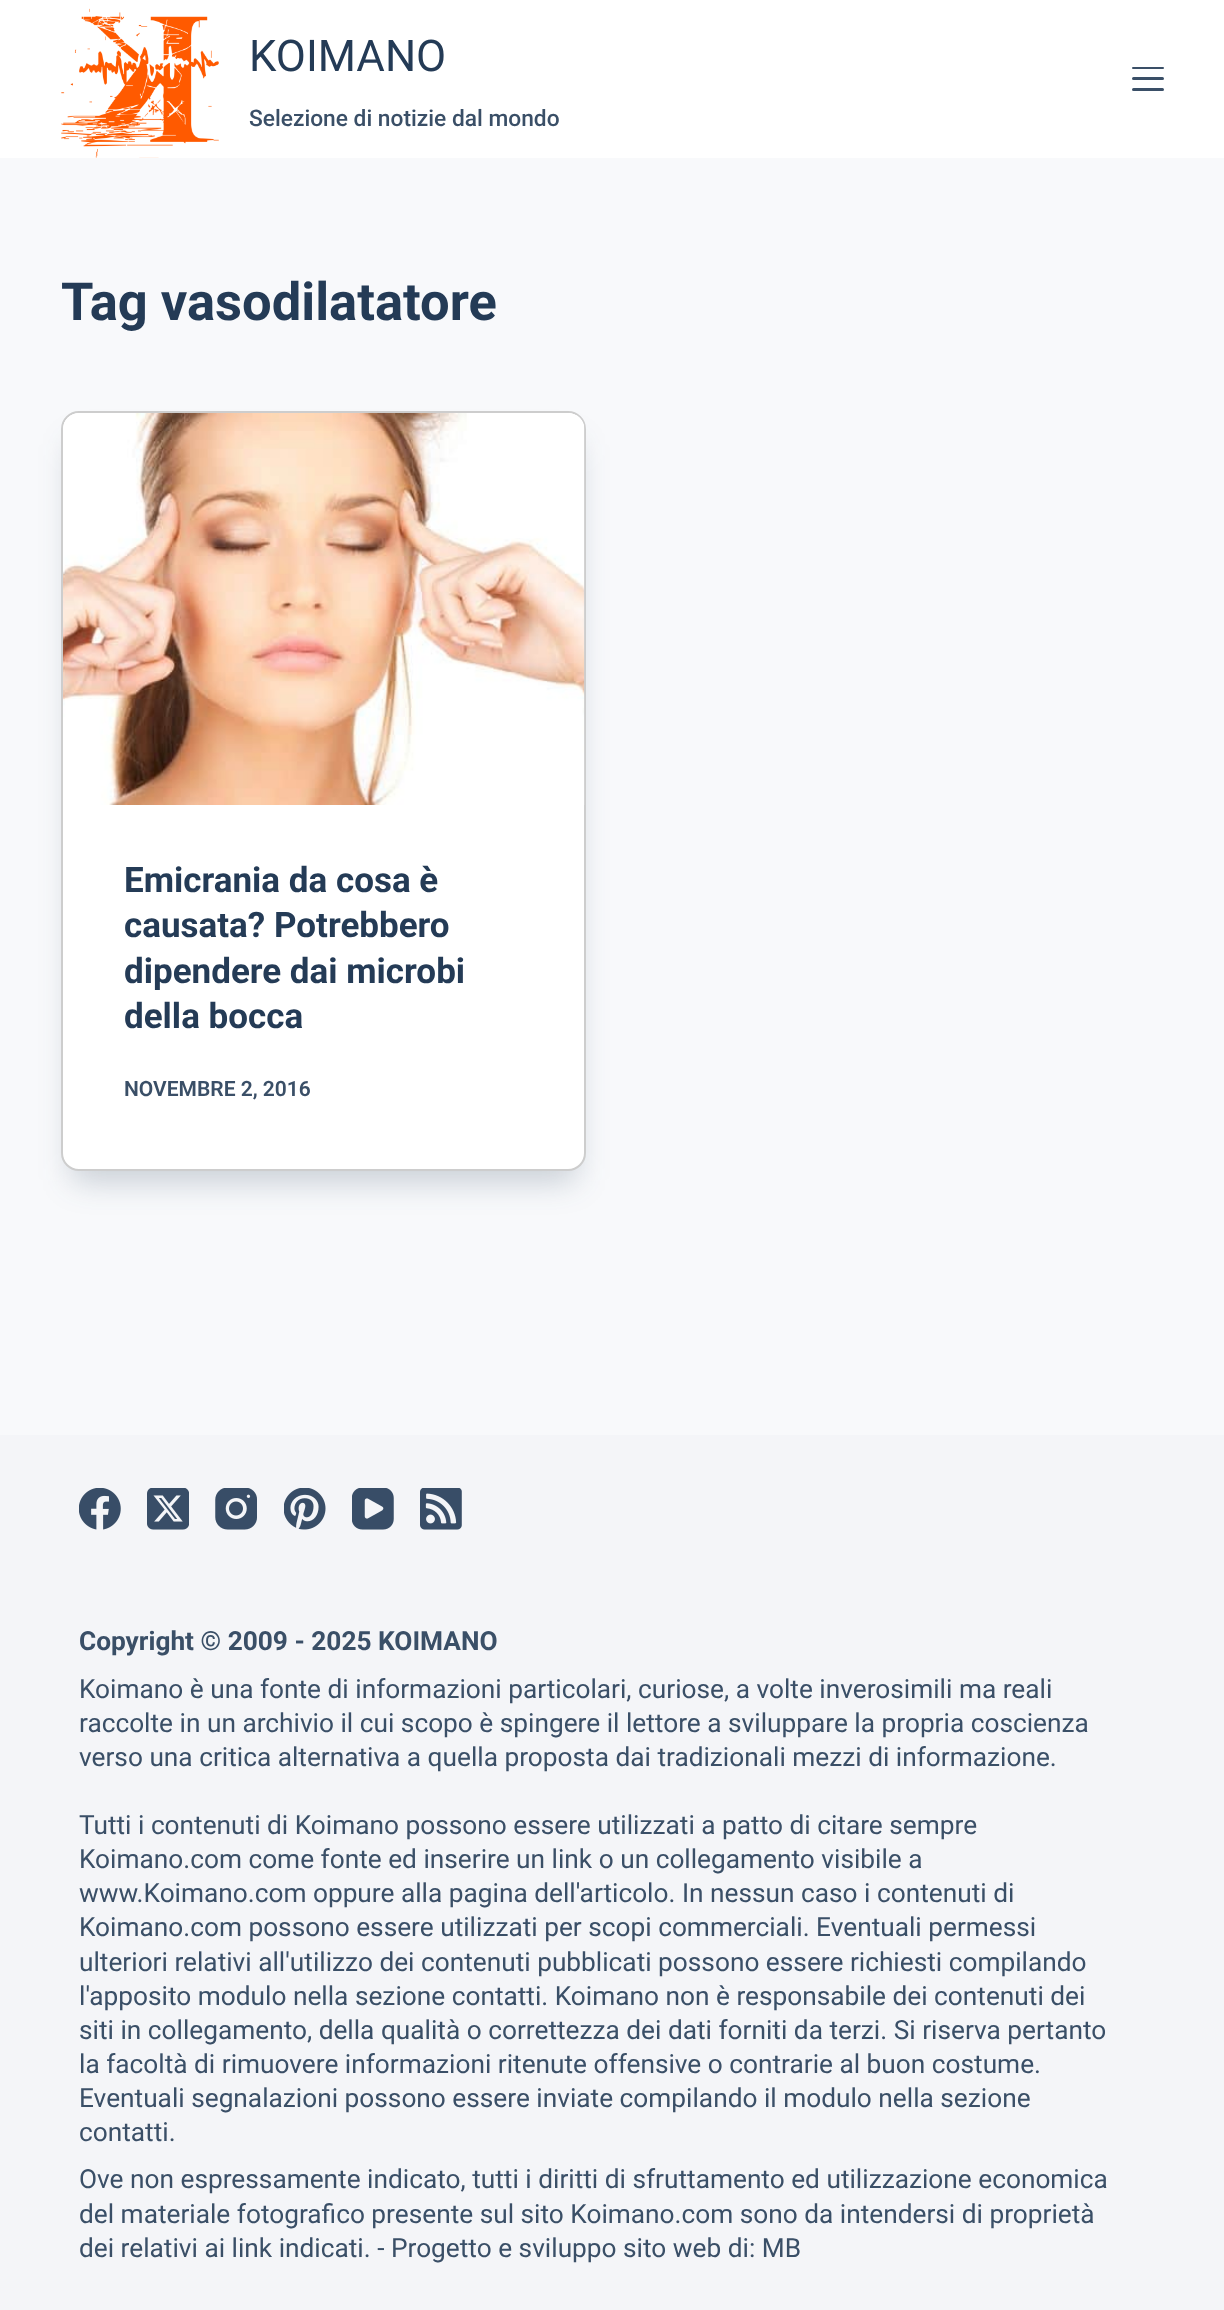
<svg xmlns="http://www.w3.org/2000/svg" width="1224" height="2310">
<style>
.a{font:43.75px Roboto;fill:#243b56}
.b{font:500 22.75px Roboto;fill:#3a4f67}
.c{font:bold 52.5px Roboto;fill:#243b56}
.d{font:bold 35px Roboto;fill:#243b56}
.e{font:600 21px Roboto;fill:#3a4f67}
.f{font:bold 26.25px Roboto;fill:#3a4f67}
.g{font:26.25px Roboto;fill:#3a4f67}
</style>
<rect width="100%" height="100%" fill="#f8f9fb"/>
<path fill="#fff" d="M0 0h1224v158H0z"/>
<image href="1.png" x="61" y="8" width="158" height="150"/>
<rect fill="#3a4f67" x="1132" y="67" width="32" height="2" rx="1"/>
<rect fill="#3a4f67" x="1132" y="77" width="32" height="3" rx="1.5"/>
<rect fill="#3a4f67" x="1132" y="88" width="32" height="3" rx="1.5"/>
<rect fill="#243c563b" filter="blur(16px)" x="72" y="443" width="504" height="738" rx="7"/>
<rect fill="#fff" stroke="#cdcdcd" stroke-width="2" x="62" y="412" width="523" height="758" rx="17"/>
<image href="2.png" x="63" y="413" width="522" height="392"/>
<path fill="#f4f5f8" d="M0 1435h1224v875H0z"/>
<image href="3.png" x="79" y="1488" width="42" height="42"/>
<image href="4.png" x="147" y="1488" width="42" height="42"/>
<image href="5.png" x="215" y="1488" width="42" height="42"/>
<image href="6.png" x="284" y="1488" width="42" height="42"/>
<image href="7.png" x="352" y="1488" width="42" height="42"/>
<image href="8.png" x="420" y="1488" width="42" height="42"/>
<text class="a" x="249" y="71">KOIMANO</text>
<text class="b" x="249" y="126">Selezione di notizie dal mondo</text>
<text class="c" x="61" y="320">Tag vasodilatatore</text>
<text class="d" x="124" y="892">Emicrania da cosa è</text>
<text class="d" x="124" y="937">causata? Potrebbero</text>
<text class="d" x="124" y="983">dipendere dai microbi</text>
<text class="d" x="124" y="1028">della bocca</text>
<text class="e" x="124" y="1096">NOVEMBRE 2, 2016</text>
<text class="f" x="79" y="1650">Copyright © 2009 - 2025 KOIMANO</text>
<text class="g" x="79" y="1698">Koimano è una fonte di informazioni particolari, curiose, a volte inverosimili ma reali</text>
<text class="g" x="79" y="1732">raccolte in un archivio il cui scopo è spingere il lettore a sviluppare la propria coscienza</text>
<text class="g" x="79" y="1766">verso una critica alternativa a quella proposta dai tradizionali mezzi di informazione.</text>
<text class="g" x="79" y="1834">Tutti i contenuti di Koimano possono essere utilizzati a patto di citare sempre</text>
<text class="g" x="79" y="1868">Koimano.com come fonte ed inserire un link o un collegamento visibile a</text>
<text class="g" x="79" y="1902">www.Koimano.com oppure alla pagina dell'articolo. In nessun caso i contenuti di</text>
<text class="g" x="79" y="1936">Koimano.com possono essere utilizzati per scopi commerciali. Eventuali permessi</text>
<text class="g" x="79" y="1971">ulteriori relativi all'utilizzo dei contenuti pubblicati possono essere richiesti compilando</text>
<text class="g" x="79" y="2005">l'apposito modulo nella sezione contatti. Koimano non è responsabile dei contenuti dei</text>
<text class="g" x="79" y="2039">siti in collegamento, della qualità o correttezza dei dati forniti da terzi. Si riserva pertanto</text>
<text class="g" x="79" y="2073">la facoltà di rimuovere informazioni ritenute offensive o contrarie al buon costume.</text>
<text class="g" x="79" y="2107">Eventuali segnalazioni possono essere inviate compilando il modulo nella sezione</text>
<text class="g" x="79" y="2141">contatti.</text>
<text class="g" x="79" y="2188">Ove non espressamente indicato, tutti i diritti di sfruttamento ed utilizzazione economica</text>
<text class="g" x="79" y="2223">del materiale fotografico presente sul sito Koimano.com sono da intendersi di proprietà</text>
<text class="g" x="79" y="2257">dei relativi ai link indicati. - Progetto e sviluppo sito web di: MB</text>
</svg>
